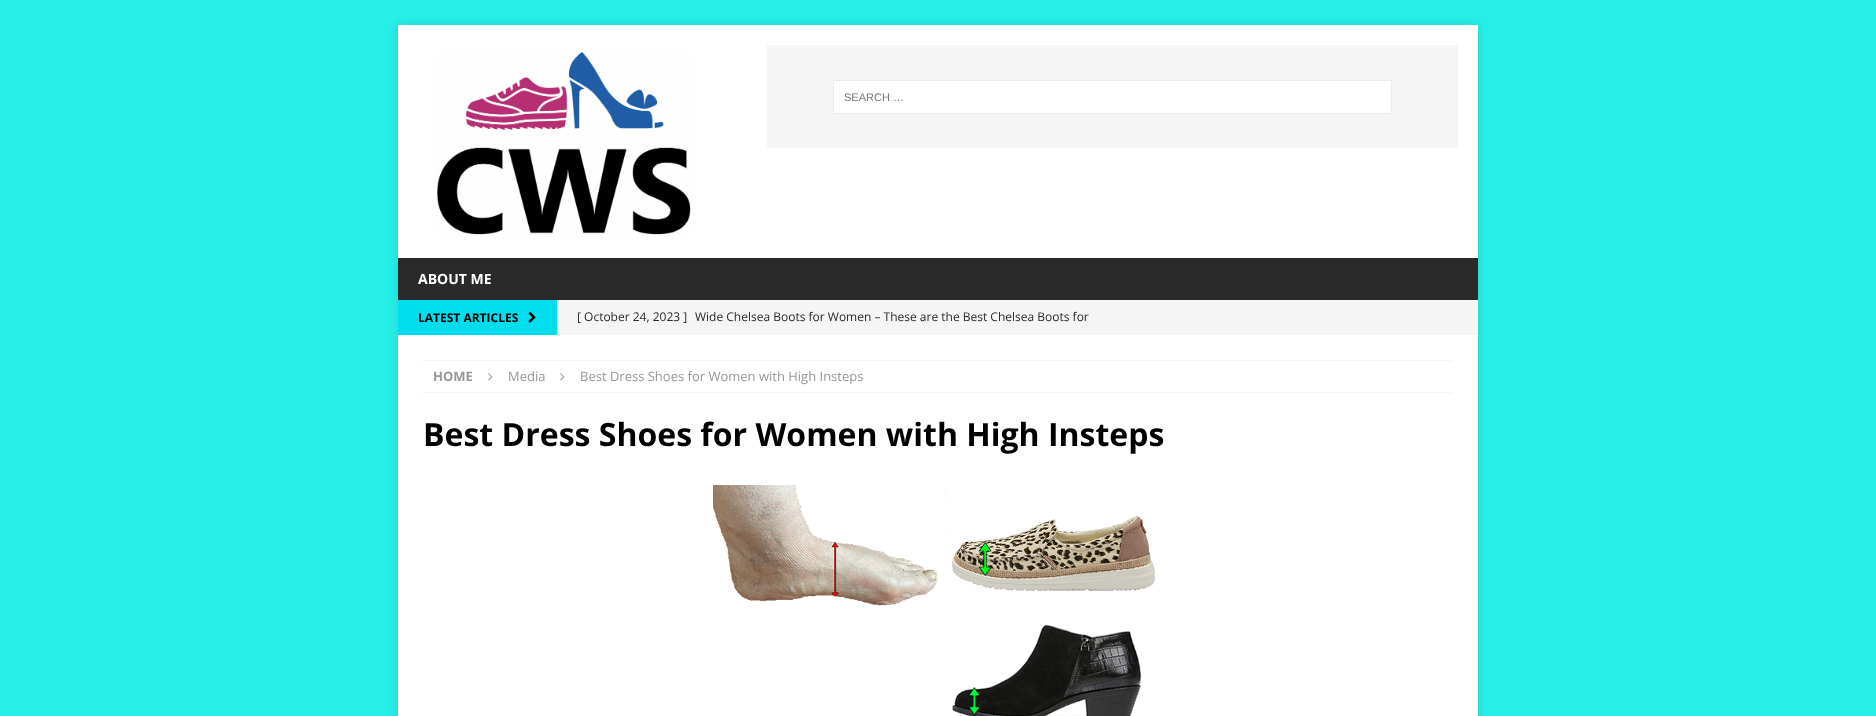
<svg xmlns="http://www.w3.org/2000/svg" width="1876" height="716">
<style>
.a{font:11px Liberation Sans;fill:#757575}
.b{font:bold 14px Open Sans;fill:#fff}
.c{font:bold 12px Open Sans;fill:#000}
.d{font:12px Open Sans;fill:#2a2a2a}
.e{font:bold 13px Open Sans;fill:#979797}
.f{font:13px Open Sans;fill:#979797}
.g{font:bold 32px Open Sans;fill:#000}
</style>
<rect width="100%" height="100%" fill="#26efe8"/>
<path fill="#3232322b" filter="blur(5px)" d="M398 25h1080v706H398z"/>
<path fill="#fff" d="M398 25h1080v233H398z"/>
<image href="1.png" x="437" y="51" width="254" height="184"/>
<path fill="#f5f5f5" d="M767 45h691v103H767z"/>
<path fill="#fff" stroke="#ebebeb" d="M833.5 80.5h558v33H833.5z"/>
<path fill="#2a2a2a" d="M398 258h1080v42H398z"/>
<path fill="#f5f5f5" d="M557 300h921v35H557z"/>
<path fill="#00dded" d="M398 300h159v35H398z"/>
<image href="2.png" x="528" y="311" width="8" height="12"/>
<path fill="#fff" d="M398 335h1080v381H398z"/>
<path fill="none" stroke="#ebebeb" stroke-dasharray="1 1" d="M423 360.5h1030"/>
<path fill="none" stroke="#ebebeb" stroke-dasharray="1 1" d="M423 392.5h1030"/>
<image href="3.png" x="488" y="373" width="5" height="8"/>
<image href="3.png" x="560" y="373" width="5" height="8"/>
<image href="4.png" x="713" y="485" width="442" height="231"/>
<text class="a" x="844" y="101">SEARCH …</text>
<text class="b" x="418" y="284">ABOUT ME</text>
<text class="c" x="418" y="322">LATEST ARTICLES</text>
<text class="d" x="577" y="321">[ October 24, 2023 ]</text>
<text class="d" x="695" y="321">Wide Chelsea Boots for Women – These are the Best Chelsea Boots for</text>
<text class="e" x="433" y="381">HOME</text>
<text class="f" x="508" y="381">Media</text>
<text class="f" x="580" y="381">Best Dress Shoes for Women with High Insteps</text>
<text class="g" x="423" y="446">Best Dress Shoes for Women with High Insteps</text>
</svg>
